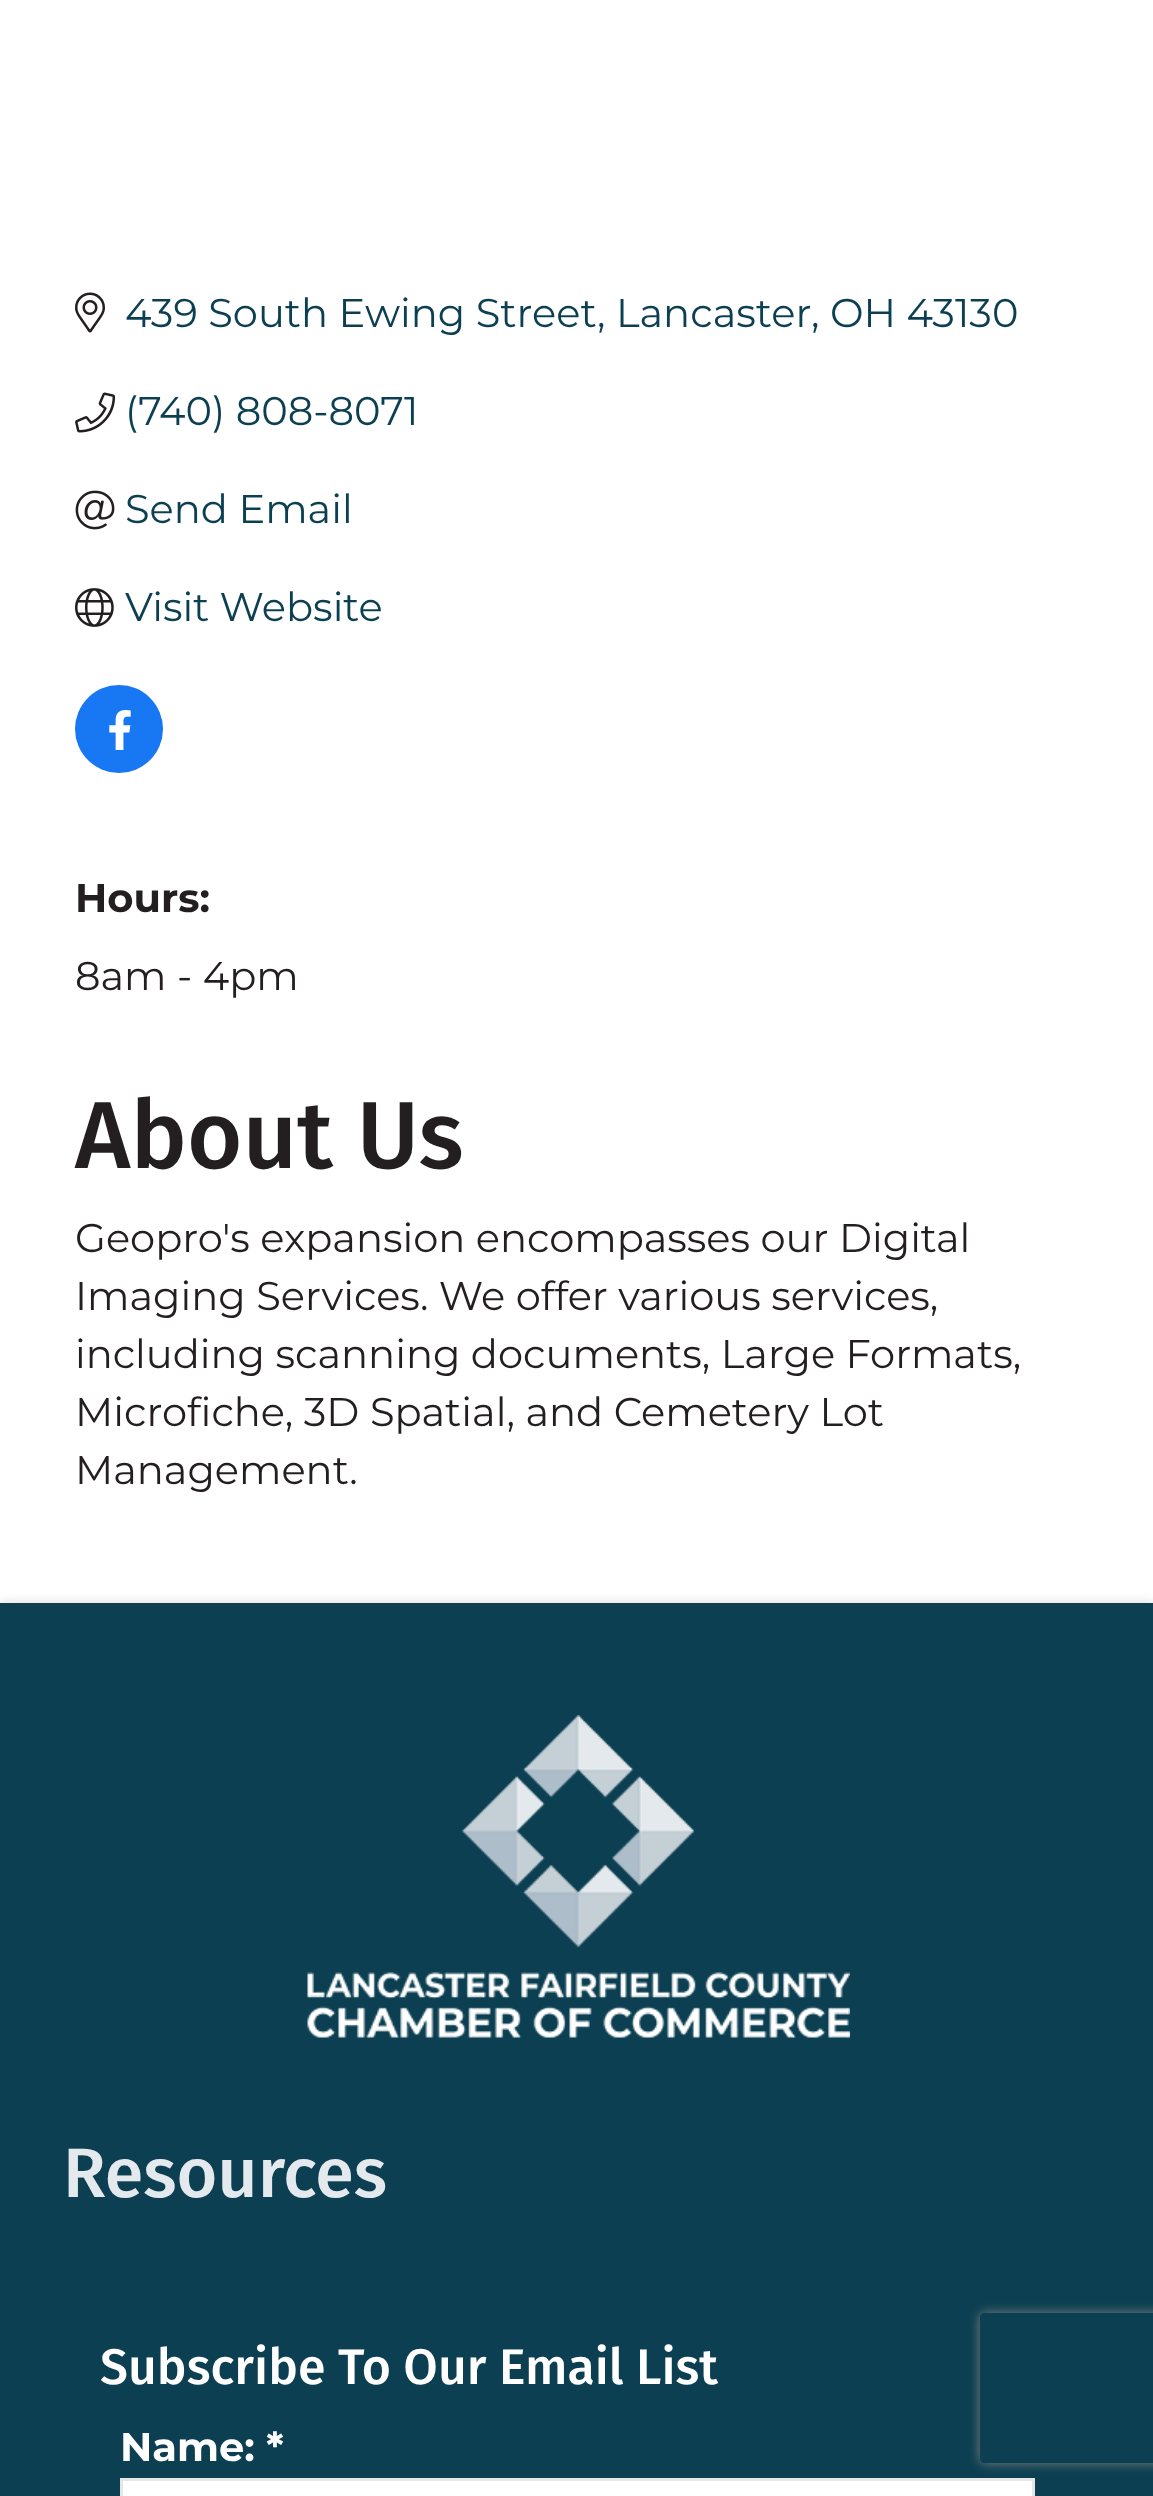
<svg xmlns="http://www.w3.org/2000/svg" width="1153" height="2496">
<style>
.a{font:40px Montserrat;fill:#0b3f51}
.b{font:bold 40px Montserrat;fill:#231f20}
.c{font:40px Montserrat;fill:#231f20}
.d{font:500 95px Fira Sans;fill:#231f20}
.e{font:500 70px Fira Sans;fill:#e4e9ed}
.f{font:500 50px Fira Sans;fill:#fff}
.g{font:bold 40px Montserrat;fill:#fff}
</style>
<defs>
<clipPath id="clip1"><path d="M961 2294h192v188h-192zm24 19h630c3 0 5 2 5 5v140c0 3-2 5-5 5h-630c-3 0-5-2-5-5v-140c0-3 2-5 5-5z" clip-rule="evenodd"/></clipPath>
</defs>
<rect width="100%" height="100%" fill="#fff"/>
<image href="1.png" x="75" y="292" width="30" height="41"/>
<image href="2.png" x="75" y="392" width="41" height="41"/>
<image href="3.png" x="75" y="490" width="40" height="40"/>
<image href="4.png" x="75" y="588" width="39" height="39"/>
<circle fill="#1877f2" cx="119" cy="729" r="44"/>
<image href="5.png" x="109" y="710" width="22" height="40"/>
<path fill="#00000026" filter="blur(6px)" d="M0 1603h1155v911H0z"/>
<path fill="#0b3f51" d="M0 1603h1153v893H0z"/>
<image href="6.png" x="307" y="1715" width="543" height="323"/>
<path fill="#fff" stroke="#e6e6e6" stroke-width="3" d="M121.5 2479.5h912v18H121.5z"/>
<g clip-path="url(#clip1)">
<rect fill="#808080" filter="blur(6px)" x="980" y="2313" width="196" height="150" rx="5"/>
</g>
<text class="a" x="125" y="327">439 South Ewing Street</text>
<text class="a" x="597" y="327">, Lancaster</text>
<text class="a" x="811" y="327">, OH 43130</text>
<text class="a" x="125" y="425">(740) 808-8071</text>
<text class="a" x="125" y="523">Send Email</text>
<text class="a" x="125" y="621">Visit Website</text>
<text class="b" x="75" y="912">Hours:</text>
<text class="c" x="75" y="990">8am - 4pm</text>
<text class="d" x="75" y="1168">About Us</text>
<text class="c" x="75" y="1252">Geopro's expansion encompasses our Digital</text>
<text class="c" x="75" y="1310">Imaging Services. We offer various services,</text>
<text class="c" x="75" y="1368">including scanning documents, Large Formats,</text>
<text class="c" x="75" y="1426">Microfiche, 3D Spatial, and Cemetery Lot</text>
<text class="c" x="75" y="1484">Management.</text>
<text class="e" x="63" y="2197">Resources</text>
<text class="f" x="100" y="2384">Subscribe To Our Email List</text>
<text class="g" x="120" y="2461">Name: *</text>
</svg>
